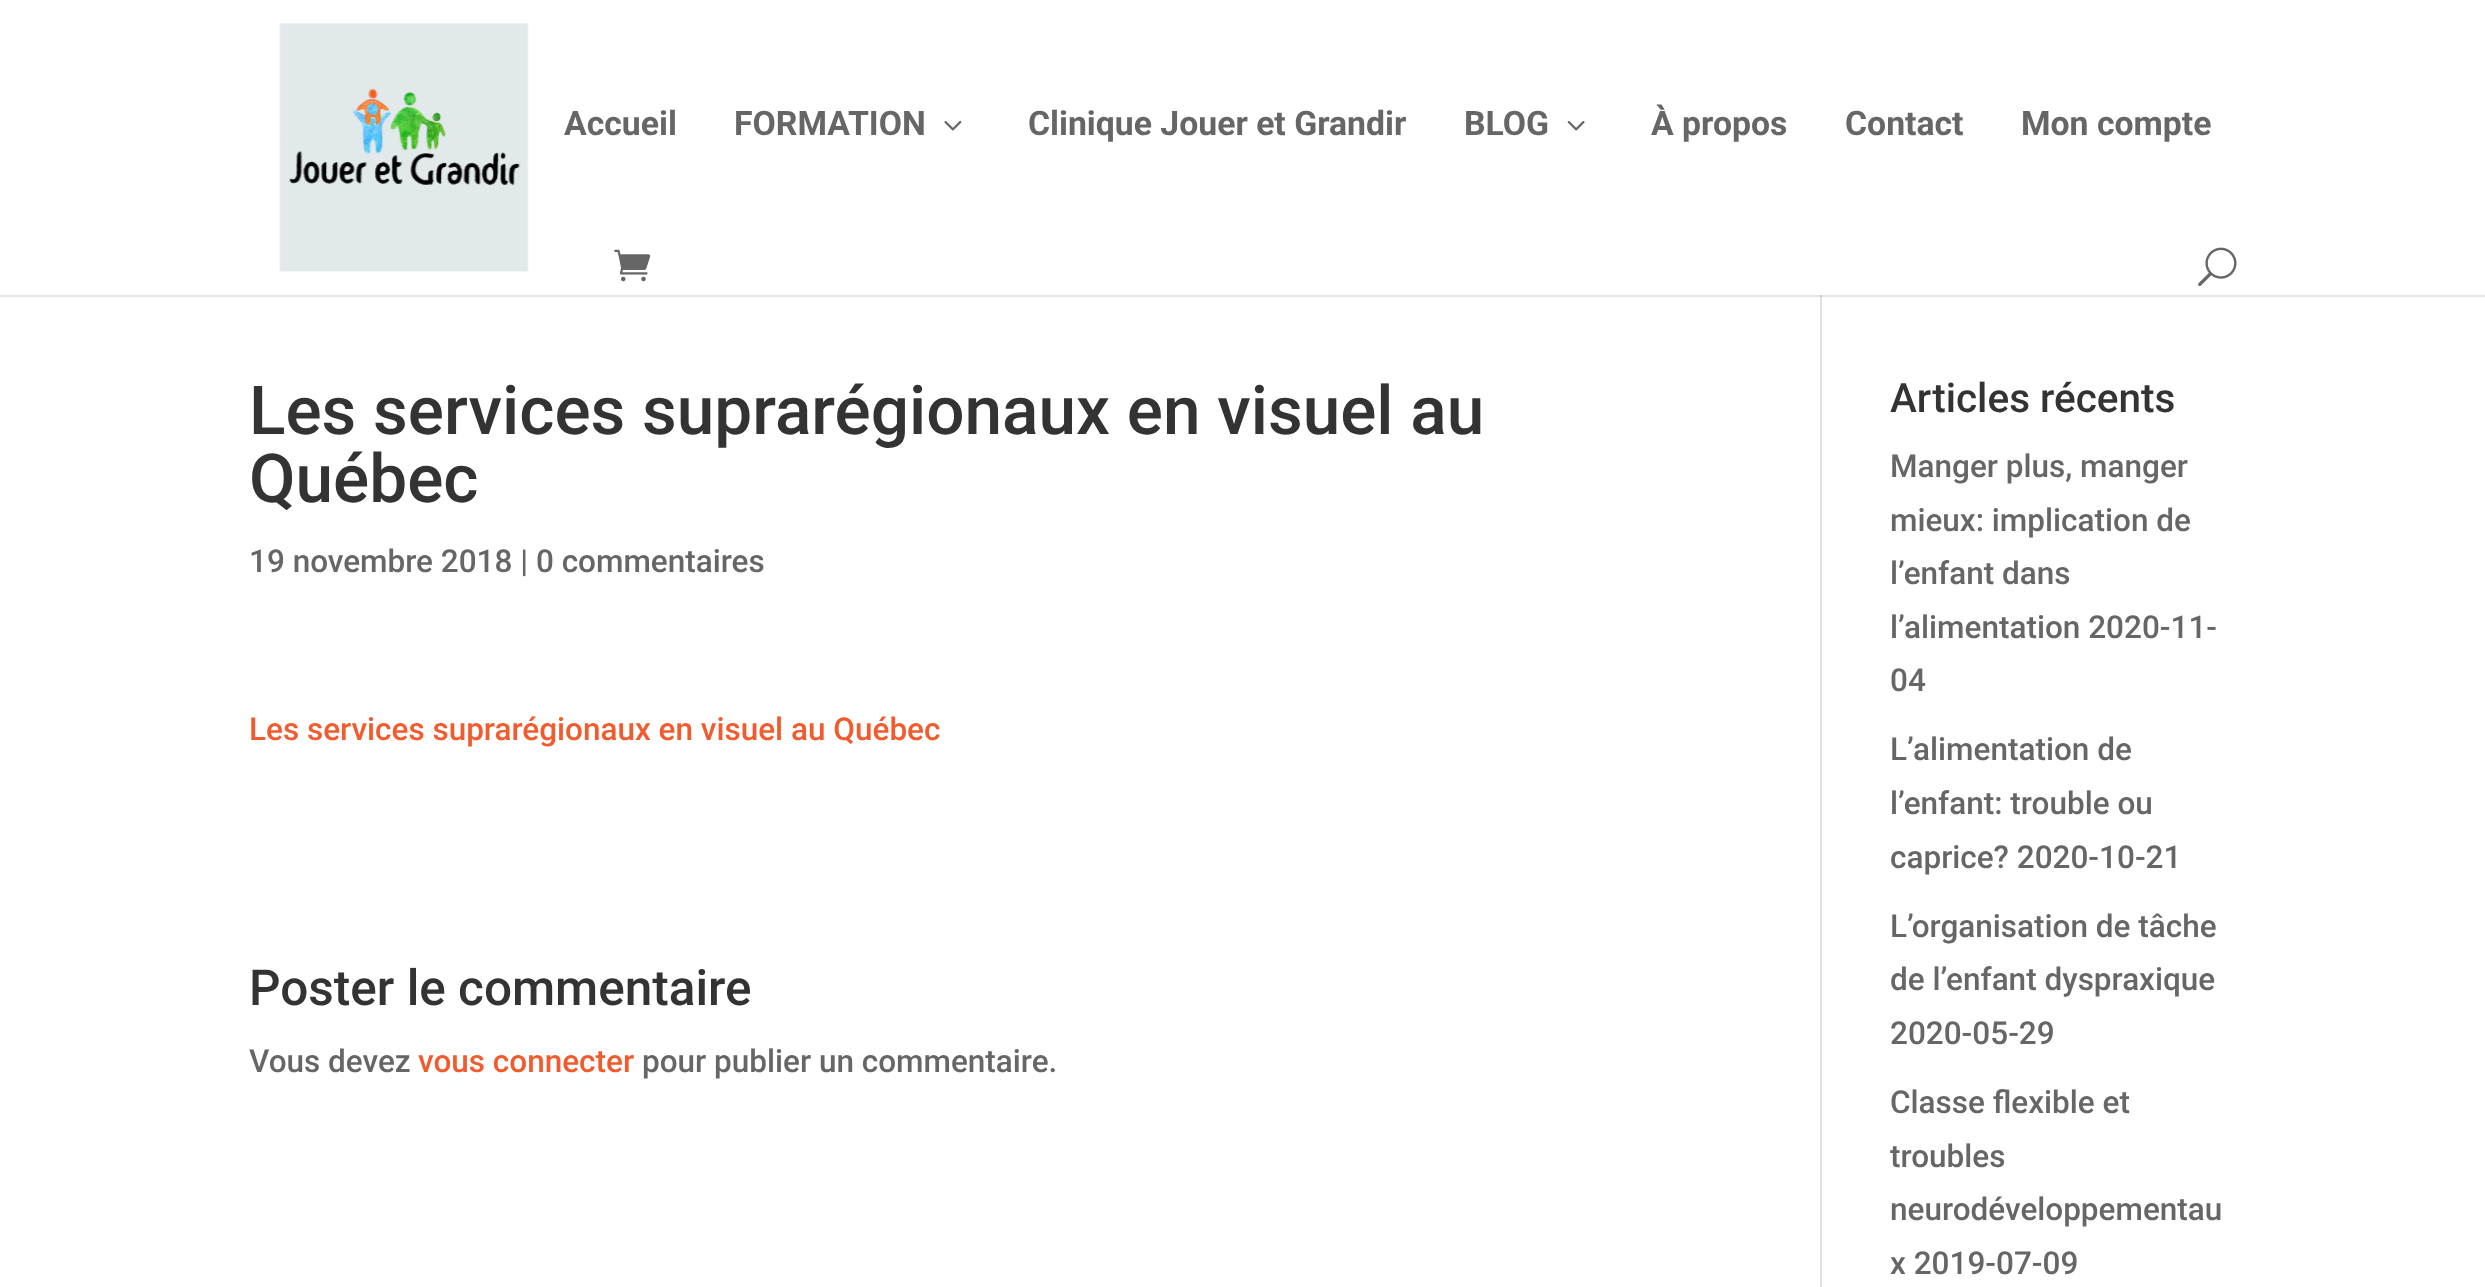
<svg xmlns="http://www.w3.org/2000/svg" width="2485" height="1287">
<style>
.a{font:bold 33.75px Roboto;fill:#666}
.b{font:500 67.5px Roboto;fill:#333}
.c{font:500 31.5px Roboto;fill:#666}
.d{font:500 31.5px Roboto;fill:#f25b2e}
.e{font:500 49.5px Roboto;fill:#333}
.f{font:500 40.5px Roboto;fill:#333}
</style>
<rect width="100%" height="100%" fill="#fff"/>
<path fill="#e6e6e6" d="M0 295h2485v2H0z"/>
<image href="1.png" x="279" y="23" width="250" height="249"/>
<image href="2.png" x="944" y="121" width="18" height="10"/>
<image href="3.png" x="1567" y="121" width="18" height="10"/>
<image href="4.png" x="614" y="249" width="37" height="33"/>
<image href="5.png" x="2198" y="247" width="39" height="39"/>
<path fill="#e2e2e2" d="M1820 297h2v990H1820z"/>
<path fill="#cbcbcb" d="M1820 295h2v2H1820z"/>
<text class="a" x="564" y="135">Accueil</text>
<text class="a" x="734" y="135">FORMATION</text>
<text class="a" x="1028" y="135">Clinique Jouer et Grandir</text>
<text class="a" x="1464" y="135">BLOG</text>
<text class="a" x="1651" y="135">À propos</text>
<text class="a" x="1845" y="135">Contact</text>
<text class="a" x="2021" y="135">Mon compte</text>
<text class="b" x="249" y="434">Les services suprarégionaux en visuel au</text>
<text class="b" x="249" y="502">Québec</text>
<text class="c" x="249" y="572">19 novembre 2018 | 0 commentaires</text>
<text class="d" x="249" y="740">Les services suprarégionaux en visuel au Québec</text>
<text class="e" x="249" y="1005">Poster le commentaire</text>
<text class="c" x="249" y="1072">Vous devez</text>
<text class="d" x="418" y="1072">vous connecter</text>
<text class="c" x="642" y="1072">pour publier un commentaire.</text>
<text class="f" x="1890" y="412">Articles récents</text>
<text class="c" x="1890" y="477">Manger plus, manger</text>
<text class="c" x="1890" y="531">mieux: implication de</text>
<text class="c" x="1890" y="584">l’enfant dans</text>
<text class="c" x="1890" y="638">l’alimentation 2020-11-</text>
<text class="c" x="1890" y="691">04</text>
<text class="c" x="1890" y="760">L’alimentation de</text>
<text class="c" x="1890" y="814">l’enfant: trouble ou</text>
<text class="c" x="1890" y="868">caprice? 2020-10-21</text>
<text class="c" x="1890" y="937">L’organisation de tâche</text>
<text class="c" x="1890" y="990">de l’enfant dyspraxique</text>
<text class="c" x="1890" y="1044">2020-05-29</text>
<text class="c" x="1890" y="1113">Classe flexible et</text>
<text class="c" x="1890" y="1167">troubles</text>
<text class="c" x="1890" y="1220">neurodéveloppementau</text>
<text class="c" x="1890" y="1274">x 2019-07-09</text>
</svg>
